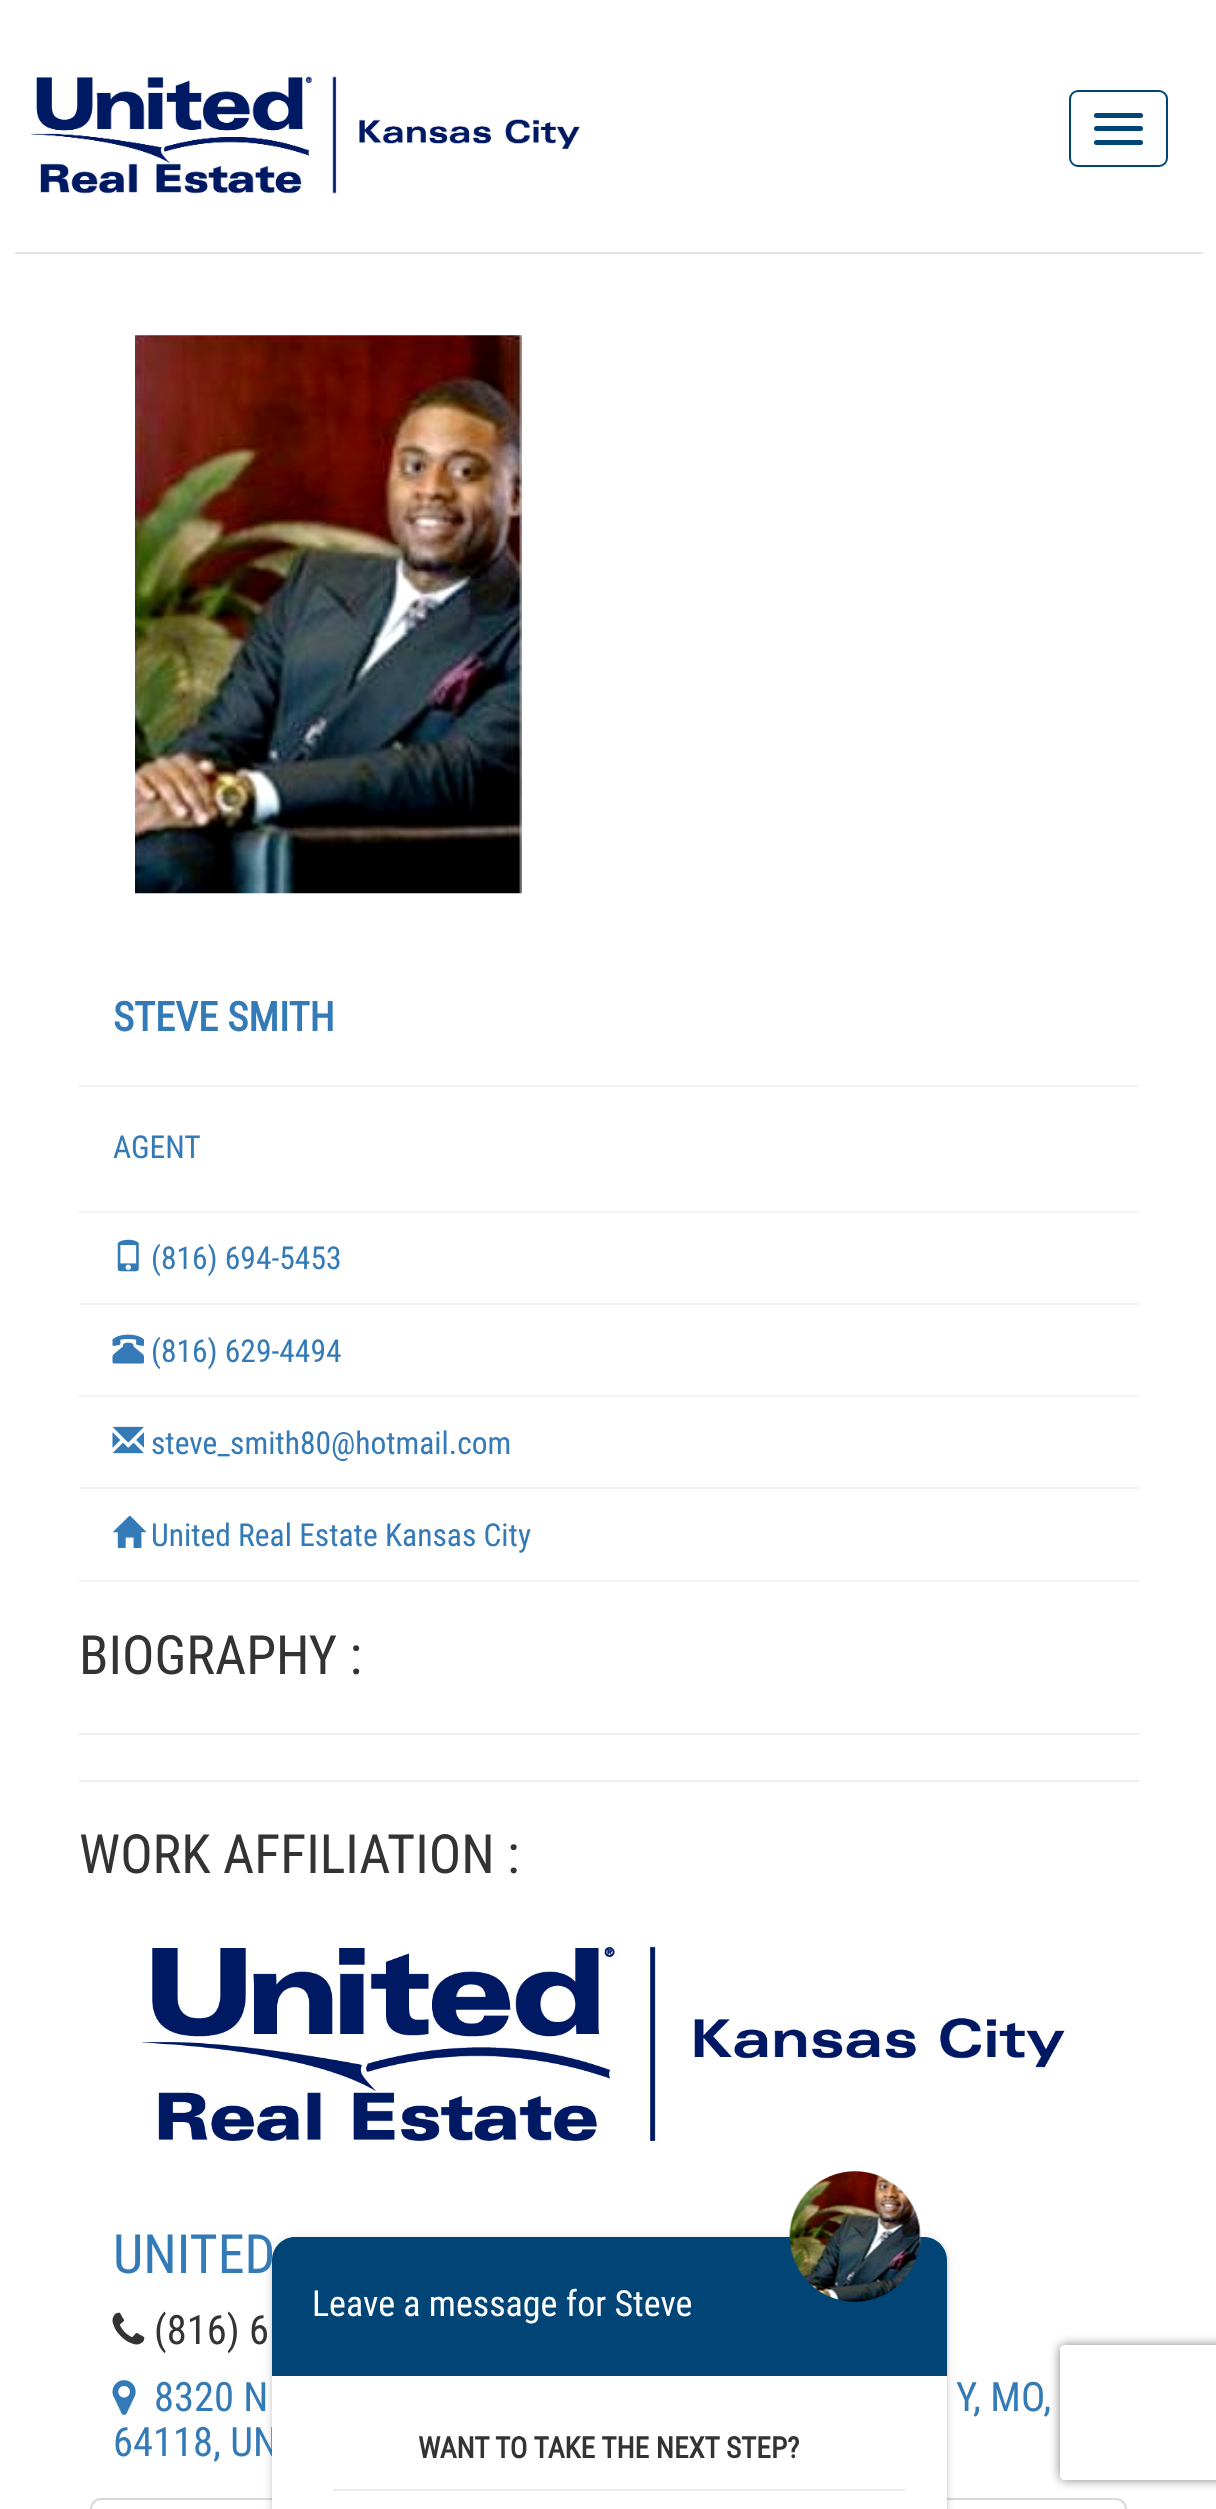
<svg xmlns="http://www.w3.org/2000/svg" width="1216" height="2509">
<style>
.a{font:bold 40.5px Roboto Condensed;fill:#337ab7}
.b{font:31.5px Roboto Condensed;fill:#337ab7}
.c{font:54px Roboto Condensed;fill:#333}
.d{font:54px Roboto Condensed;fill:#337ab7}
.e{font:40.5px Roboto Condensed;fill:#333}
.f{font:40.5px Roboto Condensed;fill:#337ab7}
.g{font:36px Roboto Condensed;fill:#fff}
.h{font:bold 29.25px Roboto Condensed;fill:#333}
</style>
<defs>
<clipPath id="clip1"><path d="M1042 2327h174v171h-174zm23 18h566c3 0 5 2 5 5v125c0 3-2 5-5 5h-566c-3 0-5-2-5-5v-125c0-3 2-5 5-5z" clip-rule="evenodd"/></clipPath>
</defs>
<rect width="100%" height="100%" fill="#fff"/>
<path fill="#e3e4e7" d="M1204 254h-1190l2-2h1186z"/>
<image href="1.png" x="30" y="76" width="550" height="118"/>
<rect fill="none" stroke="#004576" stroke-width="2" x="1070" y="91" width="97" height="75" rx="8"/>
<rect fill="#004576" x="1094" y="113" width="49" height="5" rx="2.5"/>
<rect fill="#004576" x="1094" y="126" width="49" height="5" rx="2.5"/>
<rect fill="#004576" x="1094" y="140" width="49" height="5" rx="2.5"/>
<image href="2.png" x="135" y="335" width="387" height="559"/>
<path fill="#f0f4f7" d="M79 1085h1060v2H79z"/>
<path fill="#f0f4f7" d="M79 1211h1060v2H79z"/>
<path fill="#f0f4f7" d="M79 1303h1060v2H79z"/>
<image href="3.png" x="117" y="1239" width="22" height="33"/>
<path fill="#f0f4f7" d="M79 1395h1060v2H79z"/>
<image href="4.png" x="112" y="1334" width="32" height="30"/>
<path fill="#f0f4f7" d="M79 1487h1060v2H79z"/>
<image href="5.png" x="112" y="1426" width="32" height="28"/>
<path fill="#f0f4f7" d="M79 1580h1060v2H79z"/>
<image href="6.png" x="113" y="1515" width="34" height="33"/>
<path fill="#eee" d="M79 1733h1060v2H79z"/>
<path fill="#eee" d="M79 1780h1060v2H79z"/>
<image href="7.png" x="139" y="1946" width="926" height="197"/>
<image href="8.png" x="112" y="2312" width="33" height="33"/>
<image href="9.png" x="112" y="2380" width="24" height="35"/>
<rect fill="none" stroke="#d9d9d9" stroke-width="2" x="91" y="2499" width="1035" height="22" rx="10"/>
<rect fill="#0000001f" filter="blur(5.5px)" x="272" y="2239" width="675" height="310" rx="23"/>
<rect fill="#00000024" filter="blur(2px)" x="272" y="2241" width="675" height="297" rx="23"/>
<g clip-path="url(#clip1)">
<rect fill="#808080" filter="blur(5.5px)" x="1060" y="2345" width="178" height="135" rx="5"/>
</g>
<text class="a" x="113" y="1031">STEVE SMITH</text>
<text class="b" x="113" y="1158">AGENT</text>
<text class="b" x="151" y="1269">(816) 694-5453</text>
<text class="b" x="151" y="1362">(816) 629-4494</text>
<text class="b" x="151" y="1454">steve_smith80@hotmail.com</text>
<text class="b" x="151" y="1546">United Real Estate Kansas City</text>
<text class="c" x="79" y="1674">BIOGRAPHY :</text>
<text class="c" x="79" y="1873">WORK AFFILIATION :</text>
<text class="d" x="113" y="2273">UNITED</text>
<text class="e" x="154" y="2344">(816) 6</text>
<text class="f" x="154" y="2411">8320 N</text>
<text class="f" x="956" y="2411">Y, MO,</text>
<text class="f" x="113" y="2456">64118, UN</text>
<path fill="#fff" d="M295 2237h629c12.5 0 23 10.5 23 23v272h-675v-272c0-12.5 10.5-23 23-23z"/>
<path fill="#004576" d="M295 2237h629c12.5 0 23 10.5 23 23v116h-675v-116c0-12.5 10.5-23 23-23z"/>
<image href="10.png" x="789" y="2171" width="132" height="131"/>
<text class="g" x="312" y="2316">Leave a message for Steve</text>
<text class="h" x="418" y="2458">WANT TO TAKE THE NEXT STEP?</text>
<path fill="#ececec" d="M333 2489h572v2H333z"/>
</svg>
